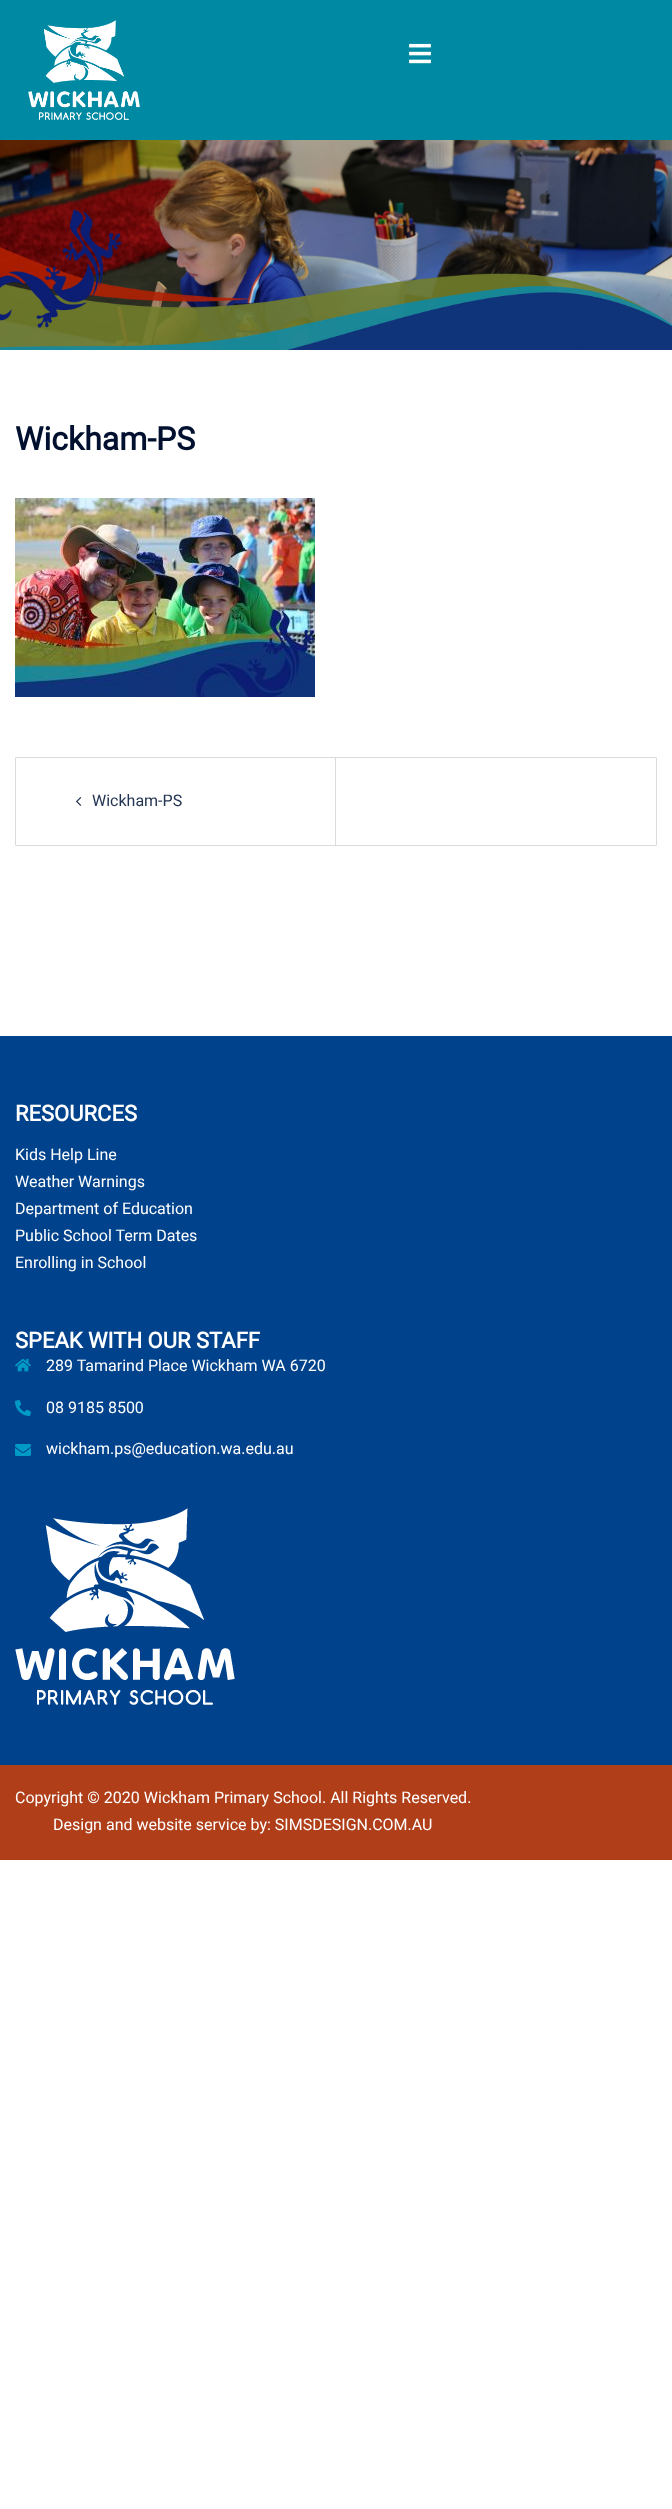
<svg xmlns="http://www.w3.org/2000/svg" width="672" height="2509">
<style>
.a{font:bold 32px Roboto;fill:#00102e}
.b{font:16px Roboto;fill:#233452}
.c{font:bold 22px Roboto;fill:#fff}
.d{font:16px Roboto;fill:#fff}
</style>
<rect width="100%" height="100%" fill="#fff"/>
<path fill="#0089a2" d="M0 0h672v140H0z"/>
<image href="1.png" x="28" y="20" width="112" height="100"/>
<image href="2.png" x="409" y="43" width="22" height="21"/>
<image href="3.png" x="0" y="140" width="672" height="210"/>
<image href="4.png" x="15" y="498" width="300" height="199"/>
<path fill="none" stroke="#dbdbdb" d="M15.5 757.5h641v88H15.5z"/>
<path fill="#dbdbdb" d="M335 758h1v87H335z"/>
<image href="5.png" x="76" y="797" width="6" height="9"/>
<path fill="#00438c" d="M0 1036h672v729H0z"/>
<image href="6.png" x="15" y="1358" width="16" height="14"/>
<image href="7.png" x="15" y="1400" width="16" height="16"/>
<image href="8.png" x="15" y="1444" width="16" height="12"/>
<image href="9.png" x="15" y="1508" width="220" height="197"/>
<path fill="#b03f19" d="M0 1765h672v95H0z"/>
<text class="a" x="15" y="450">Wickham-PS</text>
<text class="b" x="92" y="806">Wickham-PS</text>
<text class="c" x="15" y="1121">RESOURCES</text>
<text class="d" x="15" y="1160">Kids Help Line</text>
<text class="d" x="15" y="1187">Weather Warnings</text>
<text class="d" x="15" y="1214">Department of Education</text>
<text class="d" x="15" y="1241">Public School Term Dates</text>
<text class="d" x="15" y="1268">Enrolling in School</text>
<text class="c" x="15" y="1348">SPEAK WITH OUR STAFF</text>
<text class="d" x="46" y="1371">289 Tamarind Place Wickham WA 6720</text>
<text class="d" x="46" y="1413">08 9185 8500</text>
<text class="d" x="46" y="1454">wickham.ps@education.wa.edu.au</text>
<text class="d" x="15" y="1803">Copyright © 2020 Wickham Primary School. All Rights Reserved.</text>
<text class="d" x="53" y="1830">Design and website service by: SIMSDESIGN.COM.AU</text>
</svg>
